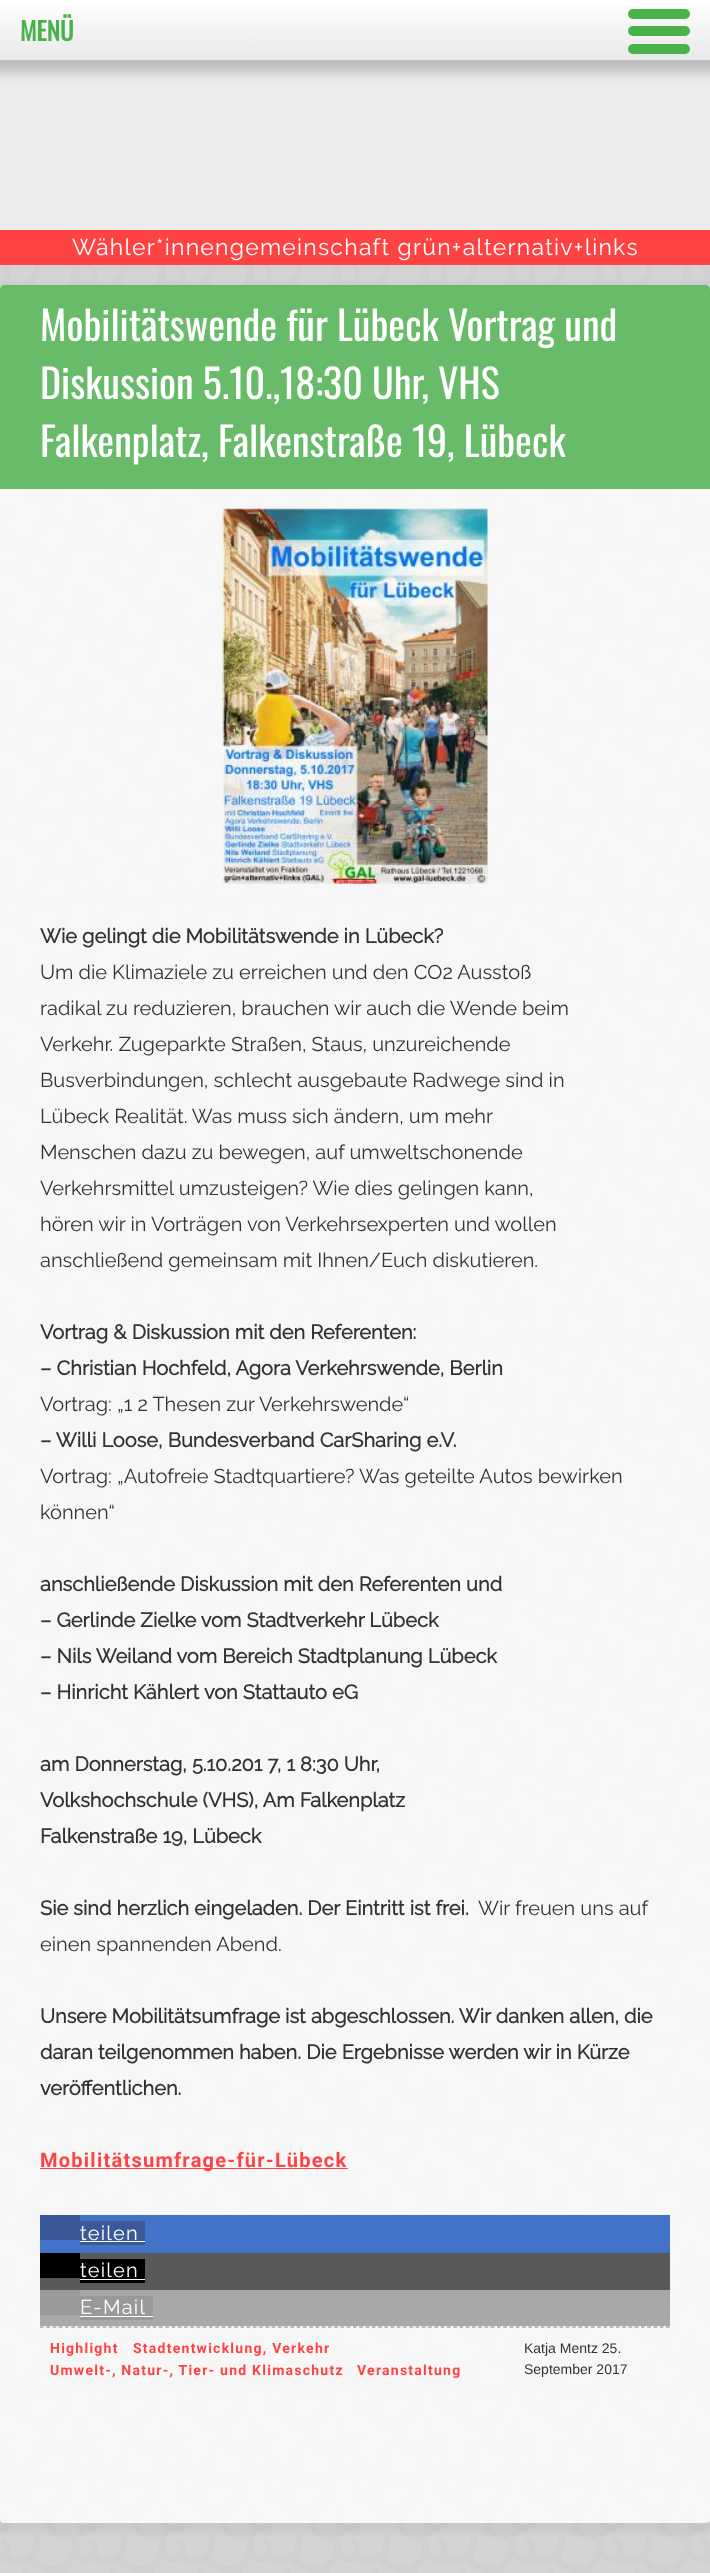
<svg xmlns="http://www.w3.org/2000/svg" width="710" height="2573">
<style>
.a{font:bold 25px Oswald;fill:#4ab24a}
.b{font:100 23px Raleway;letter-spacing:1.25px;fill:#fff}
.c{font:40px Oswald;fill:#fff}
.d{font:bold 20px Raleway;fill:#333}
.e{font:100 20px Raleway;fill:#333}
.f{font:bold 20px Roboto;letter-spacing:1.25px;fill:#ff4343}
.g{font:100 20px Raleway;letter-spacing:1.25px;fill:#fff}
.h{font:bold 14px Roboto;letter-spacing:1.25px;fill:#ff4343}
.i{font:14px Liberation Sans;fill:#333}
</style>
<defs>
<linearGradient id="g1" gradientUnits="userSpaceOnUse" x1="355" y1="0" x2="355" y2="60"><stop offset="0" stop-color="#fff"/><stop offset="1" stop-color="#e8e8e8"/></linearGradient>
<clipPath id="clip1"><path d="M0 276h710v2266h-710zm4 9h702c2 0 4 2 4 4v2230c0 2-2 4-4 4h-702c-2 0-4-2-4-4v-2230c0-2 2-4 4-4z" clip-rule="evenodd"/></clipPath>
</defs>
<rect width="100%" height="100%" fill="#d4d4d4"/>
<image href="1.png" x="0" y="265" width="710" height="2308"/>
<path fill="#ececec" d="M0 60h710v170H0z"/>
<path fill="#0a0a0a33" filter="blur(6px)" d="M-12 -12h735v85H-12z"/>
<path fill="url(#g1)" d="M0 0h710v60H0z"/>
<rect fill="#4ab24a" x="628" y="9" width="62" height="10" rx="5"/>
<rect fill="#4ab24a" x="628" y="26" width="62" height="10" rx="5"/>
<rect fill="#4ab24a" x="628" y="44" width="62" height="10" rx="5"/>
<path fill="#ff4343" d="M0 230h710v35H0z"/>
<g clip-path="url(#clip1)">
<rect fill="#0a0a0a0d" filter="blur(2.5px)" x="-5" y="285" width="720" height="2248" rx="9"/>
</g>
<rect fill="#ffffffcc" y="285" width="710" height="2238" rx="4"/>
<path fill="#68bb68" d="M4 285h702c2 0 4 2 4 4v200h-710v-200c0-2 2-4 4-4z"/>
<image href="2.png" x="222" y="508" width="266" height="376"/>
<path fill="#ff4343" d="M40 2168h308v1H40z"/>
<path fill="#4273c8" d="M40 2215h630v38H40z"/>
<path fill="#3b5998" d="M40 2215h40v25H40z"/>
<path fill="#3b5998" d="M80 2221h65v24H80z"/>
<path fill="#fff" d="M80 2241h65v1H80z"/>
<path fill="#595959" d="M40 2253h630v37H40z"/>
<path fill="#000" d="M40 2253h40v25H40z"/>
<path fill="#000" d="M80 2259h65v24H80z"/>
<path fill="#fff" d="M80 2279h65v1H80z"/>
<path fill="#a8a8a8" d="M40 2290h630v36H40z"/>
<path fill="#999" d="M40 2290h40v25H40z"/>
<path fill="#999" d="M80 2296h73v24H80z"/>
<path fill="#fff" d="M80 2316h73v1H80z"/>
<path fill="none" stroke="#808080" stroke-width="1.2" stroke-dasharray="3.75 2.51" d="M40 2327h630"/>
<text class="a" x="20" y="41">MENÜ</text>
<text class="b" x="72" y="255">Wähler*innengemeinschaft grün+alternativ+links</text>
<text class="c" x="40" y="341">Mobilitätswende für Lübeck Vortrag und</text>
<text class="c" x="40" y="399">Diskussion 5.10.,18:30 Uhr, VHS</text>
<text class="c" x="40" y="457">Falkenplatz, Falkenstraße 19, Lübeck</text>
<text class="d" x="40" y="943">Wie gelingt die Mobilitätswende in Lübeck?</text>
<text class="e" x="40" y="979">Um die Klimaziele zu erreichen und den CO2 Ausstoß</text>
<text class="e" x="40" y="1015">radikal zu reduzieren, brauchen wir auch die Wende beim</text>
<text class="e" x="40" y="1051">Verkehr. Zugeparkte Straßen, Staus, unzureichende</text>
<text class="e" x="40" y="1087">Busverbindungen, schlecht ausgebaute Radwege sind in</text>
<text class="e" x="40" y="1123">Lübeck Realität. Was muss sich ändern, um mehr</text>
<text class="e" x="40" y="1159">Menschen dazu zu bewegen, auf umweltschonende</text>
<text class="e" x="40" y="1195">Verkehrsmittel umzusteigen? Wie dies gelingen kann,</text>
<text class="e" x="40" y="1231">hören wir in Vorträgen von Verkehrsexperten und wollen</text>
<text class="e" x="40" y="1267">anschließend gemeinsam mit Ihnen/Euch diskutieren.</text>
<text class="d" x="40" y="1339">Vortrag &amp; Diskussion mit den Referenten:</text>
<text class="d" x="40" y="1375">– Christian Hochfeld, Agora Verkehrswende, Berlin</text>
<text class="e" x="40" y="1411">Vortrag: „1 2 Thesen zur Verkehrswende“</text>
<text class="d" x="40" y="1447">– Willi Loose, Bundesverband CarSharing e.V.</text>
<text class="e" x="40" y="1483">Vortrag: „Autofreie Stadtquartiere? Was geteilte Autos bewirken</text>
<text class="e" x="40" y="1519">können“</text>
<text class="d" x="40" y="1591">anschließende Diskussion mit den Referenten und</text>
<text class="d" x="40" y="1627">– Gerlinde Zielke vom Stadtverkehr Lübeck</text>
<text class="d" x="40" y="1663">– Nils Weiland vom Bereich Stadtplanung Lübeck</text>
<text class="d" x="40" y="1699">– Hinricht Kählert von Stattauto eG</text>
<text class="d" x="40" y="1771">am Donnerstag, 5.10.201 7, 1 8:30 Uhr,</text>
<text class="d" x="40" y="1807">Volkshochschule (VHS), Am Falkenplatz</text>
<text class="d" x="40" y="1843">Falkenstraße 19, Lübeck</text>
<text class="d" x="40" y="1915">Sie sind herzlich eingeladen. Der Eintritt ist frei.</text>
<text class="e" x="478" y="1915">Wir freuen uns auf</text>
<text class="e" x="40" y="1951">einen spannenden Abend.</text>
<text class="d" x="40" y="2023">Unsere Mobilitätsumfrage ist abgeschlossen. Wir danken allen, die</text>
<text class="d" x="40" y="2059">daran teilgenommen haben. Die Ergebnisse werden wir in Kürze</text>
<text class="d" x="40" y="2095">veröffentlichen.</text>
<text class="f" x="40" y="2167">Mobilitätsumfrage-für-Lübeck</text>
<text class="g" x="80" y="2240">teilen</text>
<text class="g" x="80" y="2277">teilen</text>
<text class="g" x="80" y="2314">E-Mail</text>
<text class="h" x="50" y="2353">Highlight</text>
<text class="h" x="133" y="2353">Stadtentwicklung, Verkehr</text>
<text class="h" x="50" y="2375">Umwelt-, Natur-, Tier- und Klimaschutz</text>
<text class="h" x="357" y="2375">Veranstaltung</text>
<text class="i" x="524" y="2353">Katja Mentz 25.</text>
<text class="i" x="524" y="2374">September 2017</text>
</svg>
